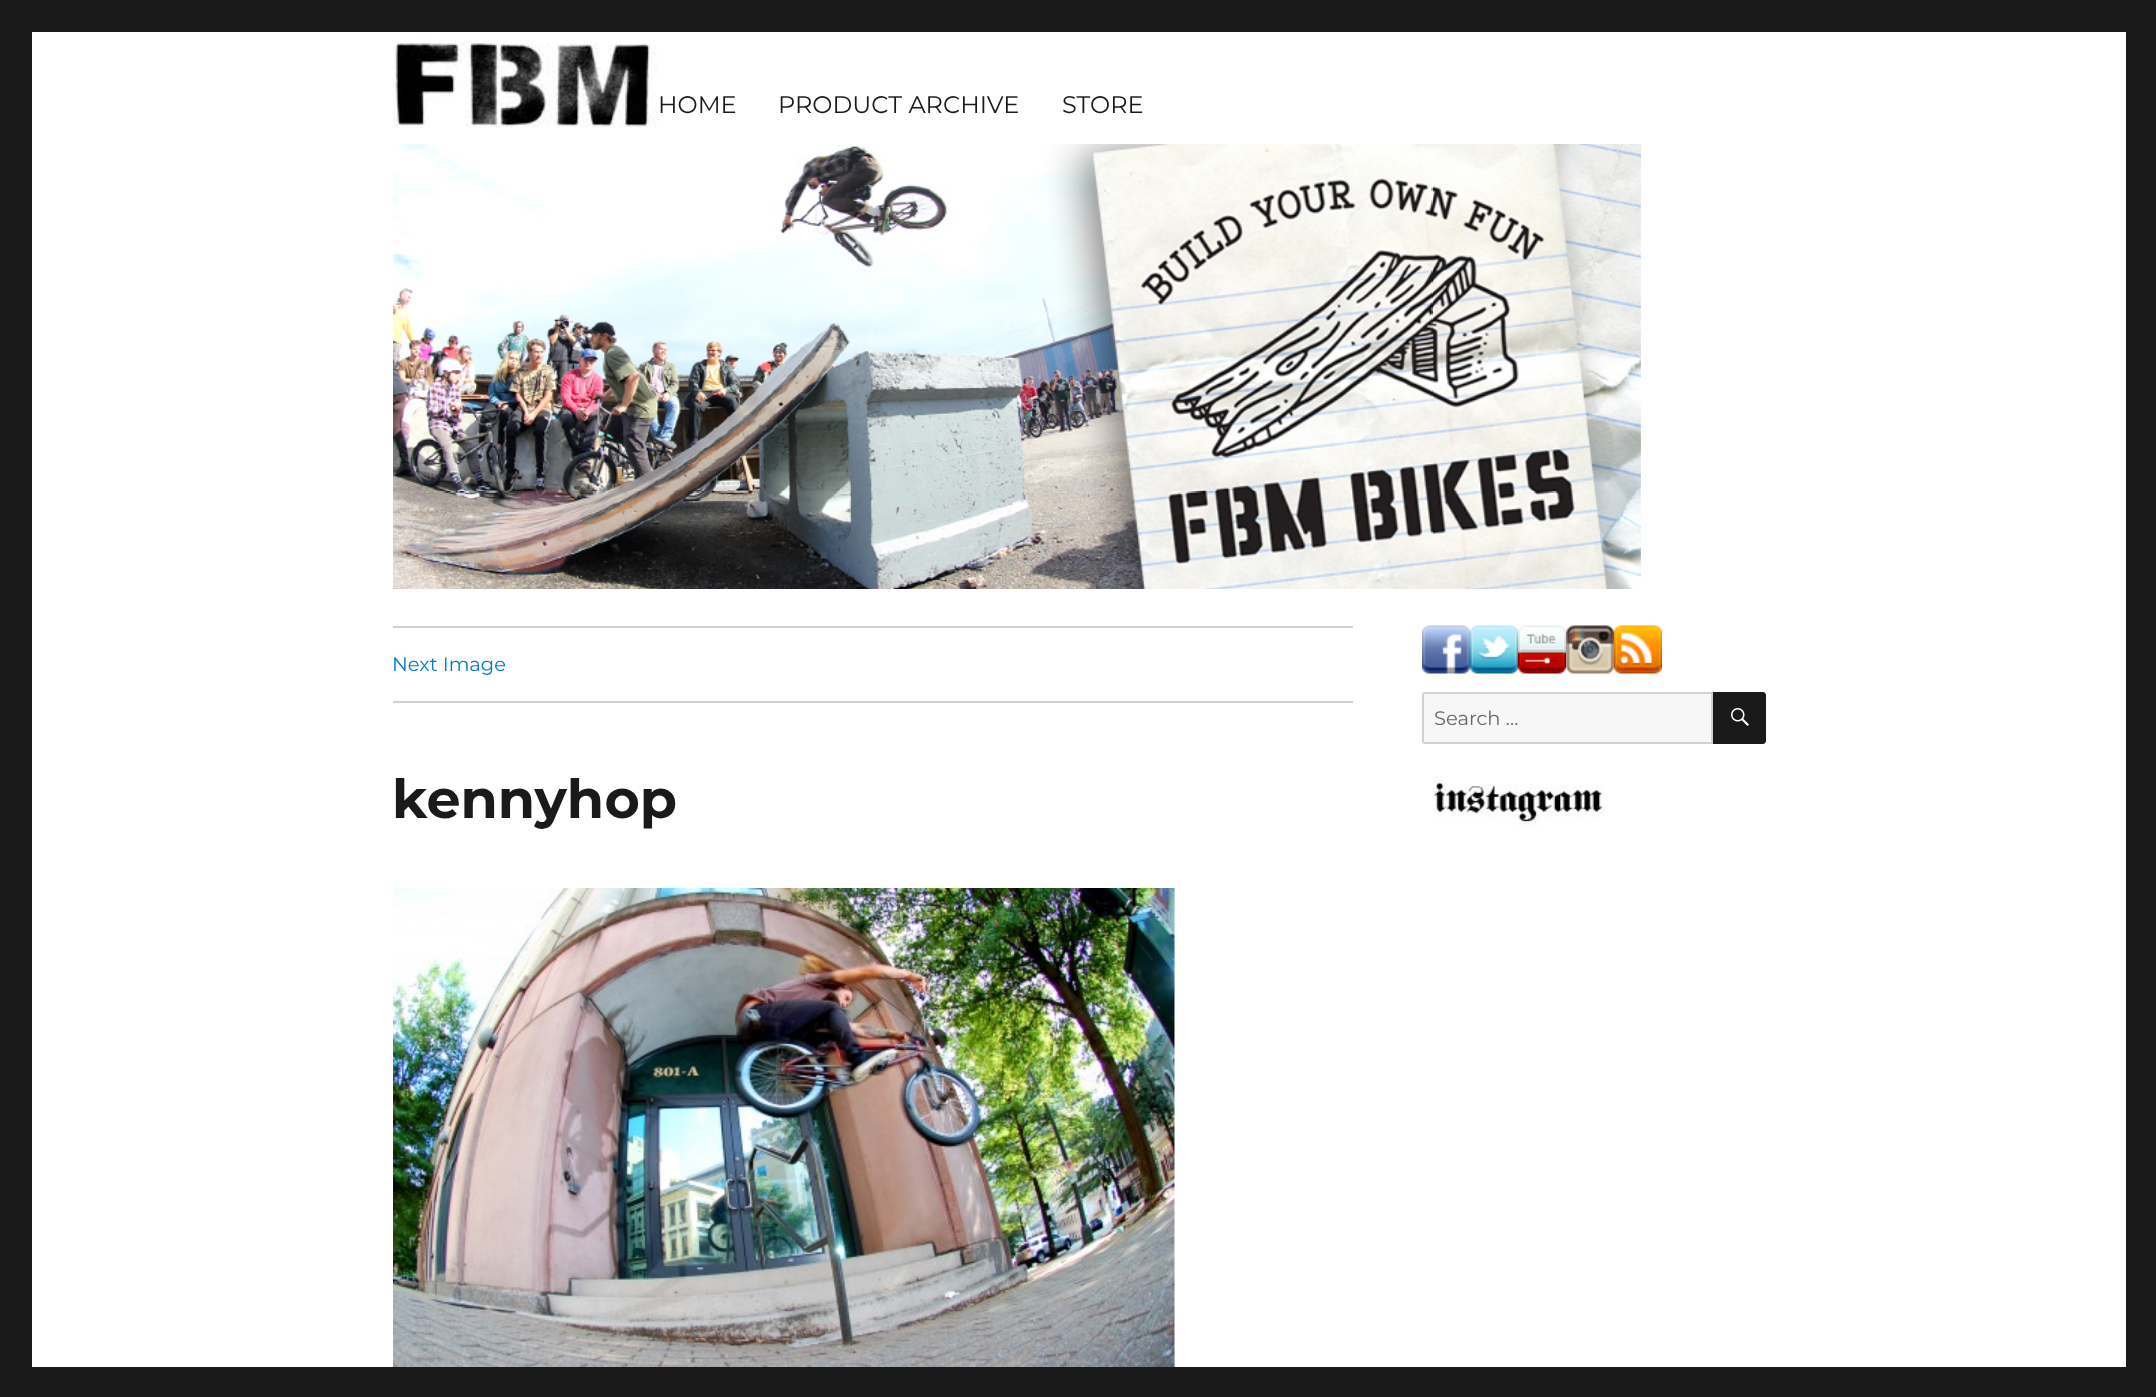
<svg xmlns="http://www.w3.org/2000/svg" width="2156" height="1397">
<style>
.a{font:100 24px Montserrat;fill:#1a1a1a}
.b{font:100 19.5px Montserrat;fill:#007acc}
.c{font:100 54px 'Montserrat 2';fill:#1a1a1a}
.d{font:100 19.5px Montserrat;fill:#686868}
</style>
<rect width="100%" height="100%" fill="#1a1a1a"/>
<path fill="#fff" d="M32 32h2094v1335H32z"/>
<image href="1.png" x="393" y="32" width="266" height="96"/>
<image href="2.png" x="393" y="144" width="1248" height="445"/>
<path fill="#d1d1d1" d="M393 626h960v2H393z"/>
<path fill="#d1d1d1" d="M393 701h960v2H393z"/>
<image href="3.png" x="393" y="888" width="782" height="479"/>
<image href="4.png" x="1422" y="625" width="48" height="49"/>
<image href="5.png" x="1470" y="625" width="48" height="49"/>
<image href="6.png" x="1518" y="625" width="48" height="49"/>
<image href="7.png" x="1566" y="625" width="48" height="49"/>
<image href="8.png" x="1614" y="625" width="48" height="49"/>
<path fill="#f7f7f7" stroke="#d1d1d1" stroke-width="2" d="M1425 693h287v50h-287c-1 0-2-1-2-2v-46c0-1 1-2 2-2z"/>
<path fill="#1a1a1a" d="M1713 692h50c1.5 0 3 1.5 3 3v46c0 1.5-1.5 3-3 3h-50z"/>
<image href="9.png" x="1731" y="708" width="18" height="18"/>
<image href="10.png" x="1433" y="776" width="171" height="51"/>
<text class="a" x="658" y="113">HOME</text>
<text class="a" x="778" y="113">PRODUCT ARCHIVE</text>
<text class="a" x="1062" y="113">STORE</text>
<text class="b" x="392" y="671">Next Image</text>
<text class="c" x="392" y="818">kennyhop</text>
<text class="d" x="1434" y="725">Search …</text>
</svg>
